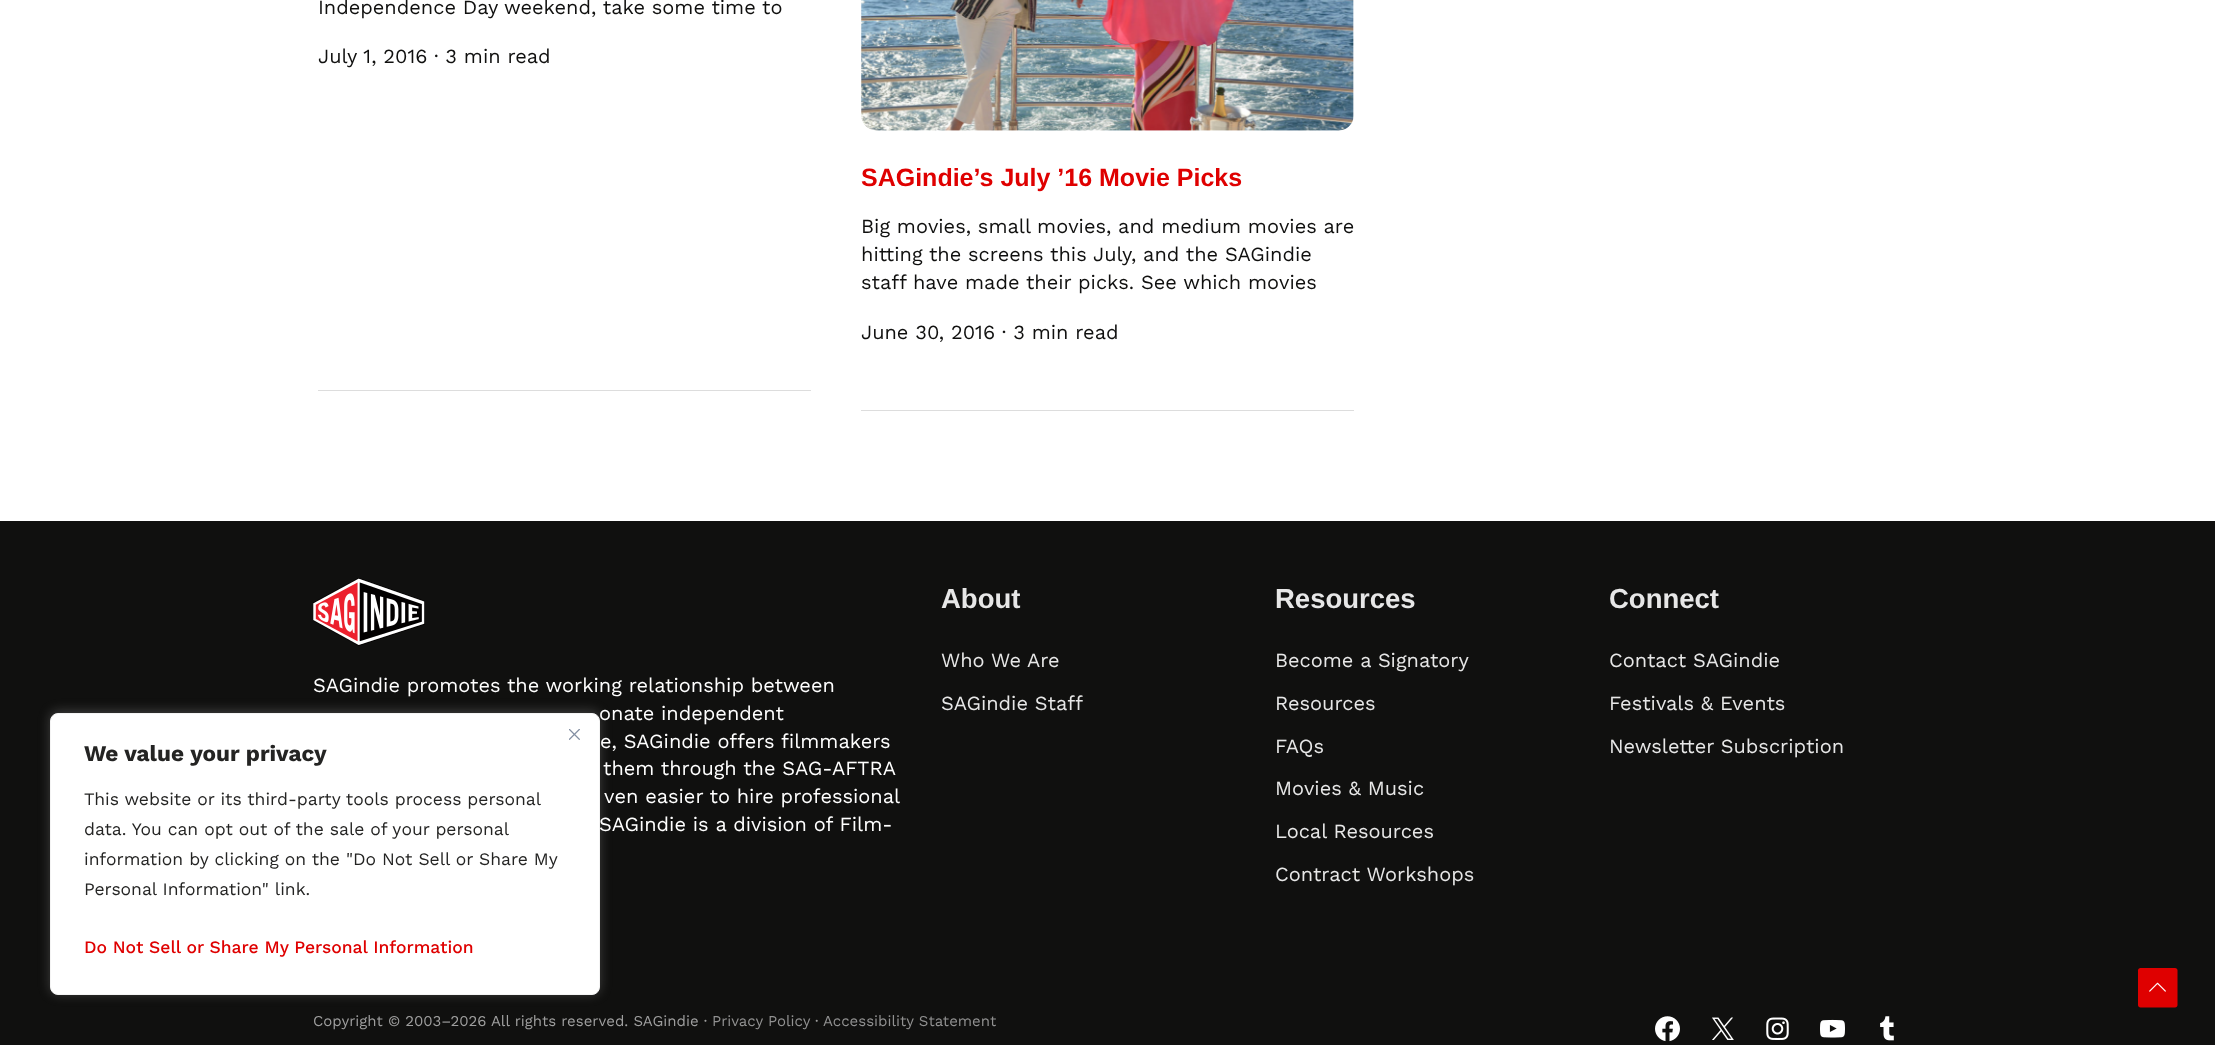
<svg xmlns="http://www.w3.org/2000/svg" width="2215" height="1045">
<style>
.a{font:20px Work Sans;fill:#10100f}
.b{font:bold 25px Liberation Sans;fill:#df0000}
.c{font:20px Work Sans;fill:#fff}
.d{font:bold 27.5px Liberation Sans;fill:#e7e7e7}
.e{font:20px Work Sans;fill:#e7e7e7}
.f{font:15px Work Sans;fill:#9f9f9f}
.g{font:15px Work Sans;fill:#919191}
.h{font:bold 22.5px Work Sans;fill:#242423}
.i{font:17.5px Work Sans;fill:#242423}
.j{font:500 17.5px Work Sans;fill:#df0000}
</style>
<rect width="100%" height="100%" fill="#fff"/>
<path fill="#ddd" d="M318 390h493v1H318z"/>
<path fill="#ddd" d="M861 410h493v1H861z"/>
<image href="1.png" x="861" y="0" width="493" height="131"/>
<path fill="#10100f" d="M0 521h2215v524H0z"/>
<image href="2.png" x="313" y="578" width="112" height="68"/>
<image href="3.png" x="1655" y="1016" width="25" height="26"/>
<image href="4.png" x="1712" y="1017" width="22" height="23"/>
<image href="5.png" x="1766" y="1017" width="23" height="23"/>
<image href="6.png" x="1820" y="1019" width="25" height="19"/>
<image href="7.png" x="1880" y="1016" width="14" height="25"/>
<rect fill="#acabab4d" filter="blur(6px)" x="50" y="711" width="550" height="283" rx="8"/>
<rect fill="#fff" stroke="#f4f4f4" x="50.5" y="713.5" width="549" height="281" rx="7.5"/>
<image href="8.png" x="569" y="729" width="11" height="11"/>
<path fill="#df0000" d="M2175 1007.5h-34.5c-1.5 0-2.5-1-2.5-2.5v-34.5c0-1.5 1-2.5 2.5-2.5h34.5c1.5 0 2.5 1 2.5 2.5v34.5c0 1.5-1 2.5-2.5 2.5z"/>
<image href="9.png" x="2149" y="982" width="17" height="10"/>
<text class="a" x="318" y="14">Independence Day weekend, take some time to</text>
<text class="a" x="318" y="63">July 1, 2016</text>
<text class="a" x="434" y="63">· 3 min read</text>
<text class="b" x="861" y="186">SAGindie’s July ’16 Movie Picks</text>
<text class="a" x="861" y="233">Big movies, small movies, and medium movies are</text>
<text class="a" x="861" y="261">hitting the screens this July, and the SAGindie</text>
<text class="a" x="861" y="289">staff have made their picks. See which movies</text>
<text class="a" x="861" y="339">June 30, 2016 · 3 min read</text>
<text class="c" x="313" y="692">SAGindie promotes the working relationship between</text>
<text class="c" x="599" y="720">onate independent</text>
<text class="c" x="600" y="748">e, SAGindie offers filmmakers</text>
<text class="c" x="603" y="775">them through the SAG-AFTRA</text>
<text class="c" x="604" y="803">ven easier to hire professional</text>
<text class="c" x="599" y="831">SAGindie is a division of Film-</text>
<text class="d" x="941" y="608">About</text>
<text class="e" x="941" y="667">Who We Are</text>
<text class="e" x="941" y="710">SAGindie Staff</text>
<text class="d" x="1275" y="608">Resources</text>
<text class="e" x="1275" y="667">Become a Signatory</text>
<text class="e" x="1275" y="710">Resources</text>
<text class="e" x="1275" y="753">FAQs</text>
<text class="e" x="1275" y="795">Movies &amp; Music</text>
<text class="e" x="1275" y="838">Local Resources</text>
<text class="e" x="1275" y="881">Contract Workshops</text>
<text class="d" x="1609" y="608">Connect</text>
<text class="e" x="1609" y="667">Contact SAGindie</text>
<text class="e" x="1609" y="710">Festivals &amp; Events</text>
<text class="e" x="1609" y="753">Newsletter Subscription</text>
<text class="f" x="313" y="1026">Copyright © 2003–2026 All rights reserved. SAGindie ·</text>
<text class="g" x="712" y="1026">Privacy Policy</text>
<text class="f" x="815" y="1026">·</text>
<text class="g" x="823" y="1026">Accessibility Statement</text>
<text class="h" x="84" y="761">We value your privacy</text>
<text class="i" x="84" y="805">This website or its third-party tools process personal</text>
<text class="i" x="84" y="835">data. You can opt out of the sale of your personal</text>
<text class="i" x="84" y="865">information by clicking on the "Do Not Sell or Share My</text>
<text class="i" x="84" y="895">Personal Information" link.</text>
<text class="j" x="84" y="953">Do Not Sell or Share My Personal Information</text>
</svg>
